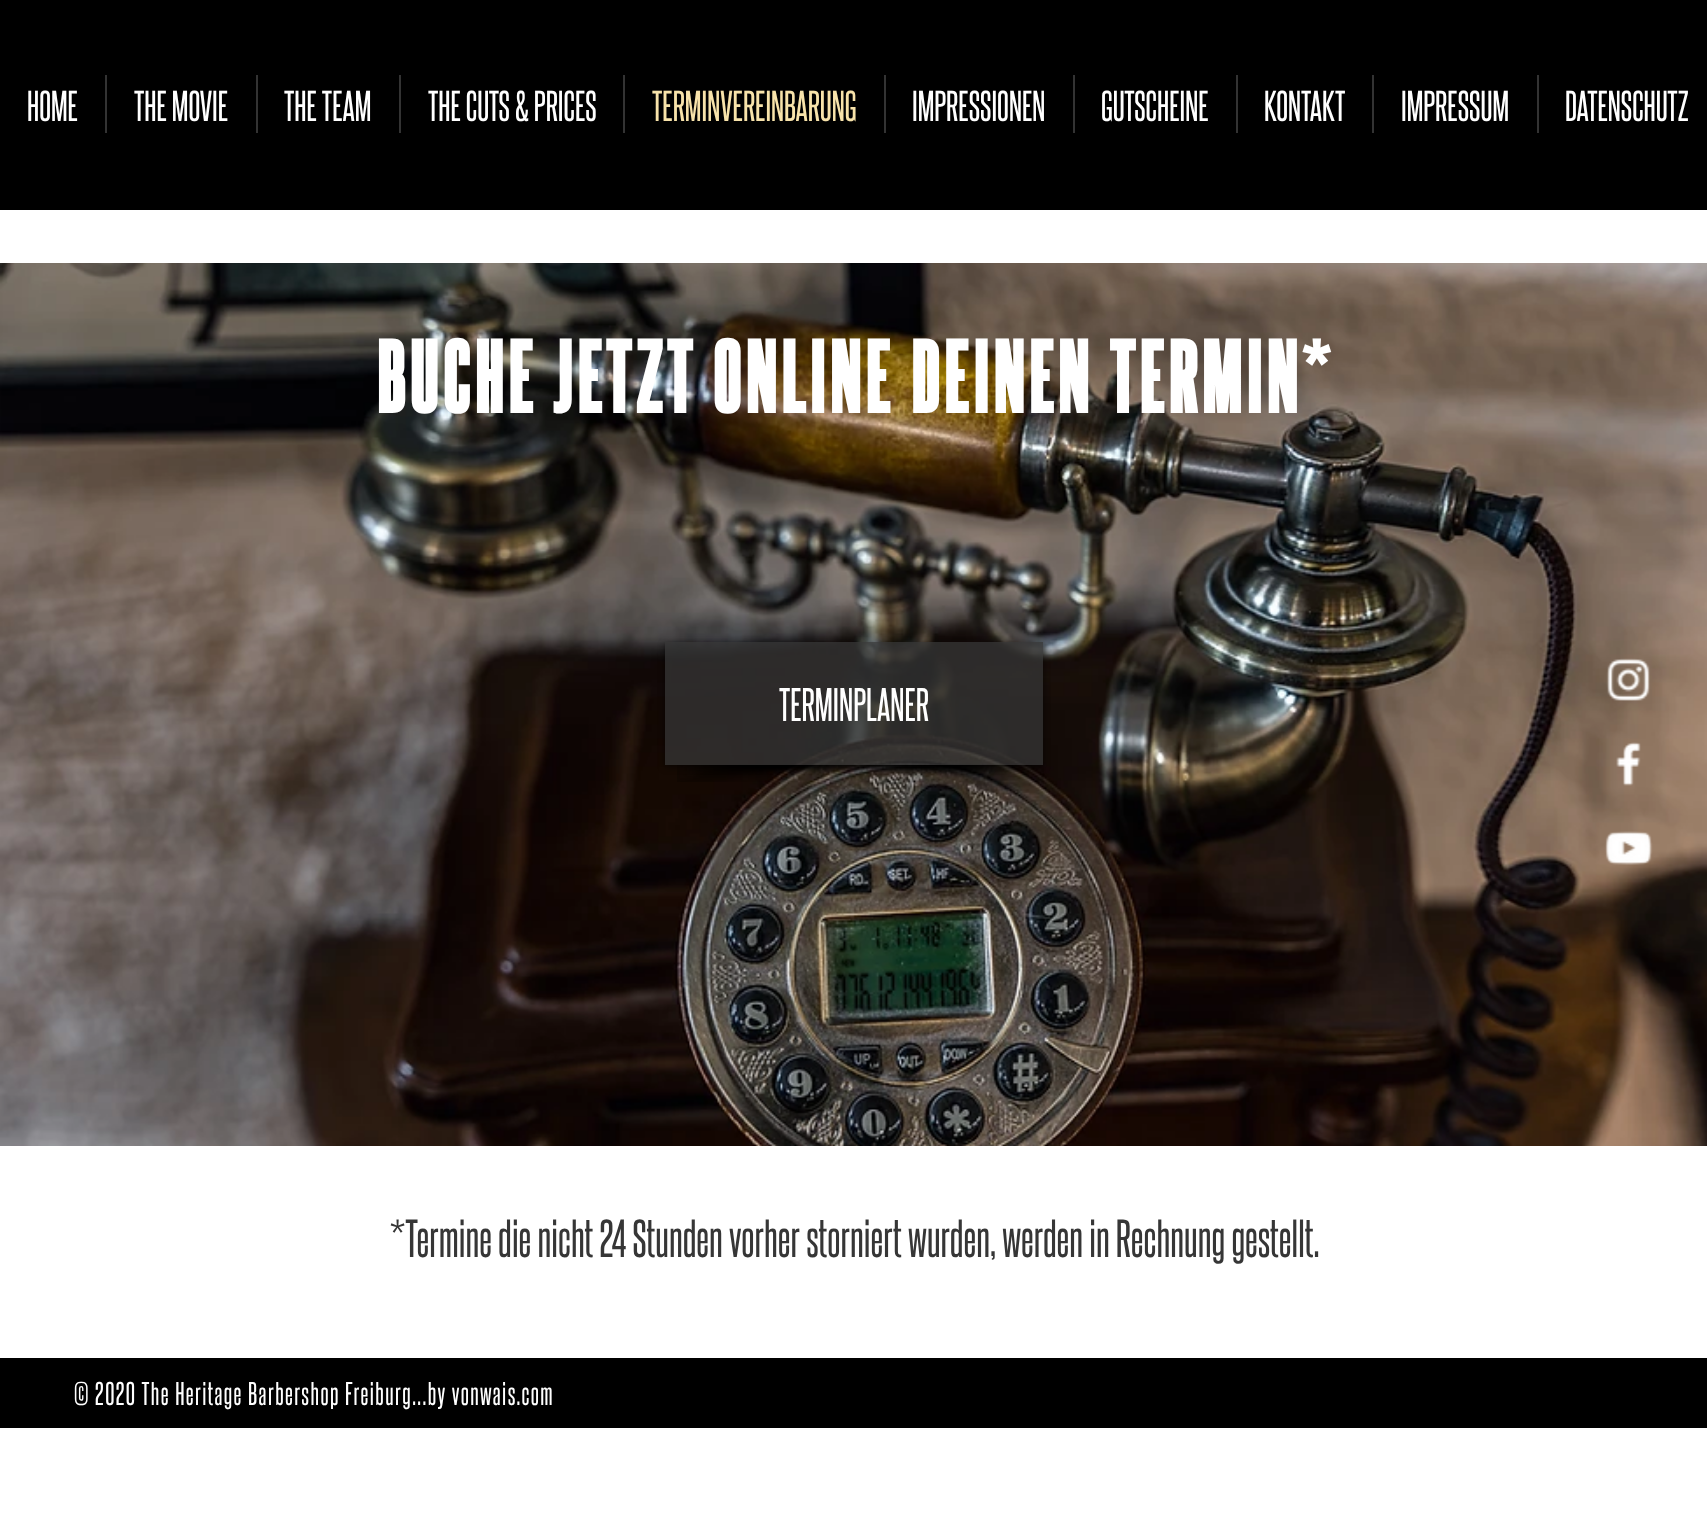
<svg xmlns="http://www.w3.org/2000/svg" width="1707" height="1526">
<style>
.a{font:36.75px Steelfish;fill:#fff}
.b{font:36.75px Steelfish;fill:#f8e3aa}
.c{font:bold 87.5px Steelfish;letter-spacing:4.4px;fill:#fff}
.d{font:40px Steelfish;fill:#fff}
.e{font:45.5px Steelfish;fill:#363636}
.f{font:28px Steelfish;letter-spacing:1.4px;fill:#fff}
</style>
<defs>
<clipPath id="clip1"><path d="M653 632h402v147h-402zm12 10h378v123h-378z" clip-rule="evenodd"/></clipPath>
</defs>
<rect width="100%" height="100%" fill="#fff"/>
<path fill="#000" d="M0 0h1707v210H0z"/>
<path fill="#333" d="M105 75h2v58H105z"/>
<path fill="#333" d="M256 75h2v58H256z"/>
<path fill="#333" d="M399 75h2v58H399z"/>
<path fill="#333" d="M623 75h2v58H623z"/>
<path fill="#333" d="M884 75h2v58H884z"/>
<path fill="#333" d="M1073 75h2v58H1073z"/>
<path fill="#333" d="M1236 75h2v58H1236z"/>
<path fill="#333" d="M1372 75h2v58H1372z"/>
<path fill="#333" d="M1537 75h2v58H1537z"/>
<image href="1.png" x="0" y="263" width="1707" height="883"/>
<image href="2.png" x="677" y="764" width="221" height="18"/>
<image href="3.png" x="838" y="764" width="206" height="27"/>
<g clip-path="url(#clip1)">
<path fill="#00000099" filter="blur(3.5px)" d="M665 644h378v123H665z"/>
</g>
<path fill="#363636c2" d="M665 642h378v123H665z"/>
<image href="4.png" x="1606" y="658" width="44" height="43"/>
<image href="5.png" x="1616" y="742" width="25" height="44"/>
<image href="6.png" x="1605" y="831" width="48" height="34"/>
<path fill="#000" d="M0 1358h1707v70H0z"/>
<text class="a" x="27" y="121">HOME</text>
<text class="a" x="134" y="121">THE MOVIE</text>
<text class="a" x="284" y="121">THE TEAM</text>
<text class="a" x="428" y="121">THE CUTS &amp; PRICES</text>
<text class="b" x="652" y="121">TERMINVEREINBARUNG</text>
<text class="a" x="912" y="121">IMPRESSIONEN</text>
<text class="a" x="1101" y="121">GUTSCHEINE</text>
<text class="a" x="1264" y="121">KONTAKT</text>
<text class="a" x="1401" y="121">IMPRESSUM</text>
<text class="a" x="1565" y="121">DATENSCHUTZ</text>
<text class="c" x="376" y="413">BUCHE JETZT ONLINE DEINEN TERMIN*</text>
<text class="d" x="779" y="721">TERMINPLANER</text>
<text class="e" x="390" y="1257">*Termine die nicht 24 Stunden vorher storniert wurden, werden in Rechnung gestellt.</text>
<text class="f" x="74" y="1405">© 2020 The Heritage Barbershop Freiburg...by vonwais.com</text>
</svg>
